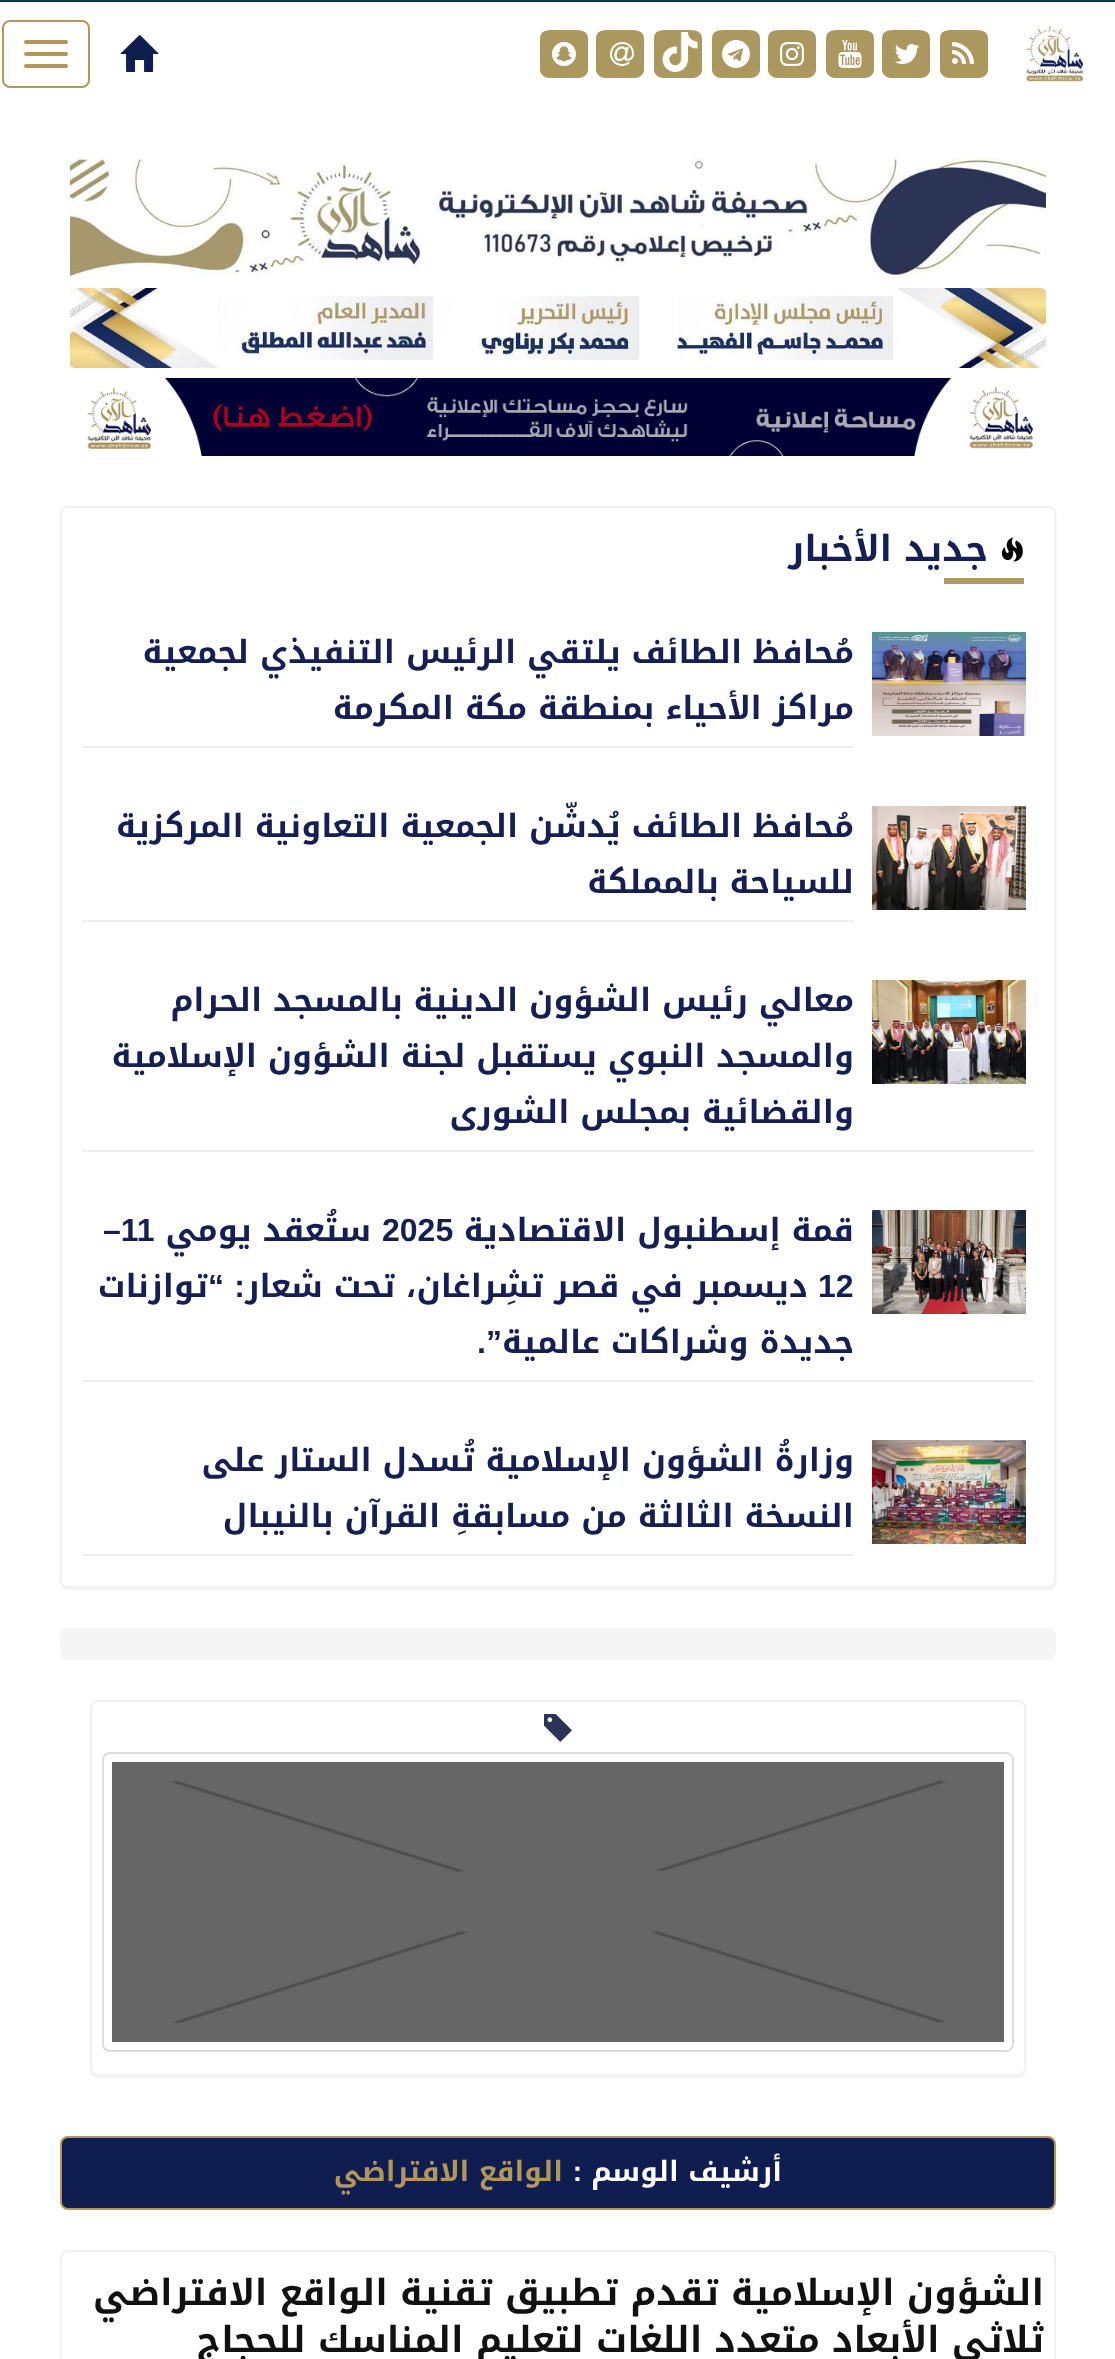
<svg xmlns="http://www.w3.org/2000/svg" width="1115" height="2359">
<style>
.a{font:bold 36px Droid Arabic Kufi;direction:rtl;fill:#151f54}
.b{font:bold 32px Droid Arabic Kufi;direction:rtl;fill:#151f54}
.c{font:bold 32px Liberation Sans;fill:#151f54}
.d{font:bold 32px Liberation Sans;direction:rtl;fill:#151f54}
.e{font:bold 28px Droid Arabic Kufi;direction:rtl;fill:#fff}
.f{font:bold 28px Liberation Sans;direction:rtl;fill:#fff}
.g{font:bold 28px Droid Arabic Kufi;direction:rtl;fill:#b3965a}
.h{font:bold 36px Droid Arabic Kufi;direction:rtl;fill:#111}
</style>
<rect width="100%" height="100%" fill="#fff"/>
<path fill="#0d3b38" d="M0 0h1115v2H0z"/>
<image href="1.png" x="1026" y="25" width="58" height="57"/>
<path fill="#ab985e" d="M988 39v32c-2 7-8 7-14 7h-20c-6 0-12 0-14-7v-32c0-9 7-9 14-9h20c6 0 14 0 14 9z"/>
<image href="2.png" x="952" y="42" width="22" height="22"/>
<path fill="#ab985e" d="M930 39v32c-2 7-8 7-14 7h-20c-6 0-12 0-14-7v-32c0-9 7-9 14-9h20c6 0 14 0 14 9z"/>
<image href="3.png" x="894" y="44" width="26" height="20"/>
<path fill="#ab985e" d="M874 39v32c-2 7-8 7-14 7h-20c-6 0-12 0-14-7v-32c0-9 7-9 14-9h20c6 0 14 0 14 9z"/>
<image href="4.png" x="838" y="40" width="24" height="28"/>
<path fill="#ab985e" d="M816 39v32c-2 7-8 7-14 7h-20c-6 0-12 0-14-7v-32c0-9 7-9 14-9h20c6 0 14 0 14 9z"/>
<image href="5.png" x="780" y="42" width="24" height="24"/>
<path fill="#ab985e" d="M760 39v32c-2 7-8 7-14 7h-20c-6 0-12 0-14-7v-32c0-9 7-9 14-9h20c6 0 14 0 14 9z"/>
<image href="6.png" x="722" y="40" width="28" height="28"/>
<path fill="#ab985e" d="M702 39v32c-2 7-8 7-14 7h-20c-6 0-12 0-14-7v-32c0-9 7-9 14-9h20c6 0 14 0 14 9z"/>
<image href="7.png" x="662" y="32" width="36" height="40"/>
<path fill="#ab985e" d="M644 39v32c-2 7-8 7-14 7h-20c-6 0-12 0-14-7v-32c0-9 7-9 14-9h20c6 0 14 0 14 9z"/>
<image href="8.png" x="610" y="42" width="24" height="24"/>
<path fill="#ab985e" d="M588 39v32c-2 7-8 7-14 7h-20c-6 0-12 0-14-7v-32c0-9 7-9 14-9h20c6 0 14 0 14 9z"/>
<image href="9.png" x="552" y="42" width="24" height="24"/>
<image href="10.png" x="120" y="35" width="39" height="37"/>
<rect fill="none" stroke="#b3965a" stroke-width="2" x="3" y="21" width="86" height="66" rx="7"/>
<rect fill="#b3965a" x="24" y="40" width="44" height="4" rx="2"/>
<rect fill="#b3965a" x="24" y="52" width="44" height="4" rx="2"/>
<rect fill="#b3965a" x="24" y="64" width="44" height="4" rx="2"/>
<image href="11.png" x="70" y="158" width="976" height="120"/>
<image href="12.png" x="70" y="288" width="976" height="80"/>
<image href="13.png" x="87" y="378" width="946" height="78"/>
<rect fill="#0000000d" filter="blur(1px)" x="60" y="508" width="996" height="1082" rx="8"/>
<rect fill="#fff" stroke="#f1f1f1" stroke-width="2" x="61" y="507" width="994" height="1080" rx="7"/>
<path fill="#fff" d="M68 508h980c3.5 0 6 2.5 6 6v80h-992v-80c0-3.5 2.5-6 6-6z"/>
<image href="14.png" x="1001" y="537" width="22" height="25"/>
<path fill="#ae9c5e" d="M944 578h80v6H944z"/>
<image href="15.png" x="872" y="632" width="154" height="104"/>
<path fill="#eee" d="M82 746h772v2H82z"/>
<image href="16.png" x="872" y="806" width="154" height="104"/>
<path fill="#eee" d="M82 920h772v2H82z"/>
<image href="17.png" x="872" y="980" width="154" height="104"/>
<path fill="#eee" d="M82 1150h952v2H82z"/>
<image href="18.png" x="872" y="1210" width="154" height="104"/>
<path fill="#eee" d="M82 1380h952v2H82z"/>
<image href="19.png" x="872" y="1440" width="154" height="104"/>
<path fill="#eee" d="M82 1554h772v2H82z"/>
<rect fill="#f5f5f5" x="60" y="1628" width="996" height="32" rx="8"/>
<rect fill="#0000000d" filter="blur(1px)" x="90" y="1702" width="936" height="376" rx="8"/>
<rect fill="#fff" stroke="#f1f1f1" stroke-width="2" x="91" y="1701" width="934" height="374" rx="7"/>
<image href="20.png" x="544" y="1714" width="28" height="28"/>
<rect fill="none" stroke="#ddd" stroke-width="2" x="103" y="1753" width="910" height="298" rx="7"/>
<image href="21.png" x="112" y="1762" width="892" height="280"/>
<rect fill="#101d51" stroke="#b3965a" stroke-width="2" x="61" y="2137" width="994" height="72" rx="7"/>
<rect fill="none" stroke="#f1f1f1" stroke-width="2" x="61" y="2251" width="994" height="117" rx="7"/>
<text class="a" x="988" y="561">جديد الأخبار</text>
<text class="b" x="854" y="663">مُحافظ الطائف يلتقي الرئيس التنفيذي لجمعية</text>
<text class="b" x="854" y="719">مراكز الأحياء بمنطقة مكة المكرمة</text>
<text class="b" x="854" y="837">مُحافظ الطائف يُدشّن الجمعية التعاونية المركزية</text>
<text class="b" x="854" y="893">للسياحة بالمملكة</text>
<text class="b" x="854" y="1011">معالي رئيس الشؤون الدينية بالمسجد الحرام</text>
<text class="b" x="854" y="1067">والمسجد النبوي يستقبل لجنة الشؤون الإسلامية</text>
<text class="b" x="854" y="1123">والقضائية بمجلس الشورى</text>
<text class="b" x="854" y="1241">قمة إسطنبول الاقتصادية</text>
<text class="c" x="382" y="1241">2025</text>
<text class="b" x="371" y="1241">ستُعقد يومي</text>
<text class="c" x="103" y="1241">–11</text>
<text class="c" x="818" y="1297">12</text>
<text class="b" x="808" y="1297">ديسمبر في قصر تشِراغان، تحت شعار</text>
<text class="d" x="245" y="1297">:</text>
<text class="d" x="224" y="1297">“</text>
<text class="b" x="208" y="1297">توازنات</text>
<text class="b" x="854" y="1353">جديدة وشراكات عالمية</text>
<text class="d" x="502" y="1353">”.</text>
<text class="b" x="854" y="1471">وزارةُ الشؤون الإسلامية تُسدل الستار على</text>
<text class="b" x="854" y="1527">النسخة الثالثة من مسابقةِ القرآن بالنيبال</text>
<text class="e" x="782" y="2181">أرشيف الوسم</text>
<text class="f" x="582" y="2181">:</text>
<text class="g" x="563" y="2181">الواقع الافتراضي</text>
<text class="h" x="1044" y="2305">الشؤون الإسلامية تقدم تطبيق تقنية الواقع الافتراضي</text>
<text class="h" x="1044" y="2352">ثلاثي الأبعاد متعدد اللغات لتعليم المناسك للحجاج</text>
</svg>
